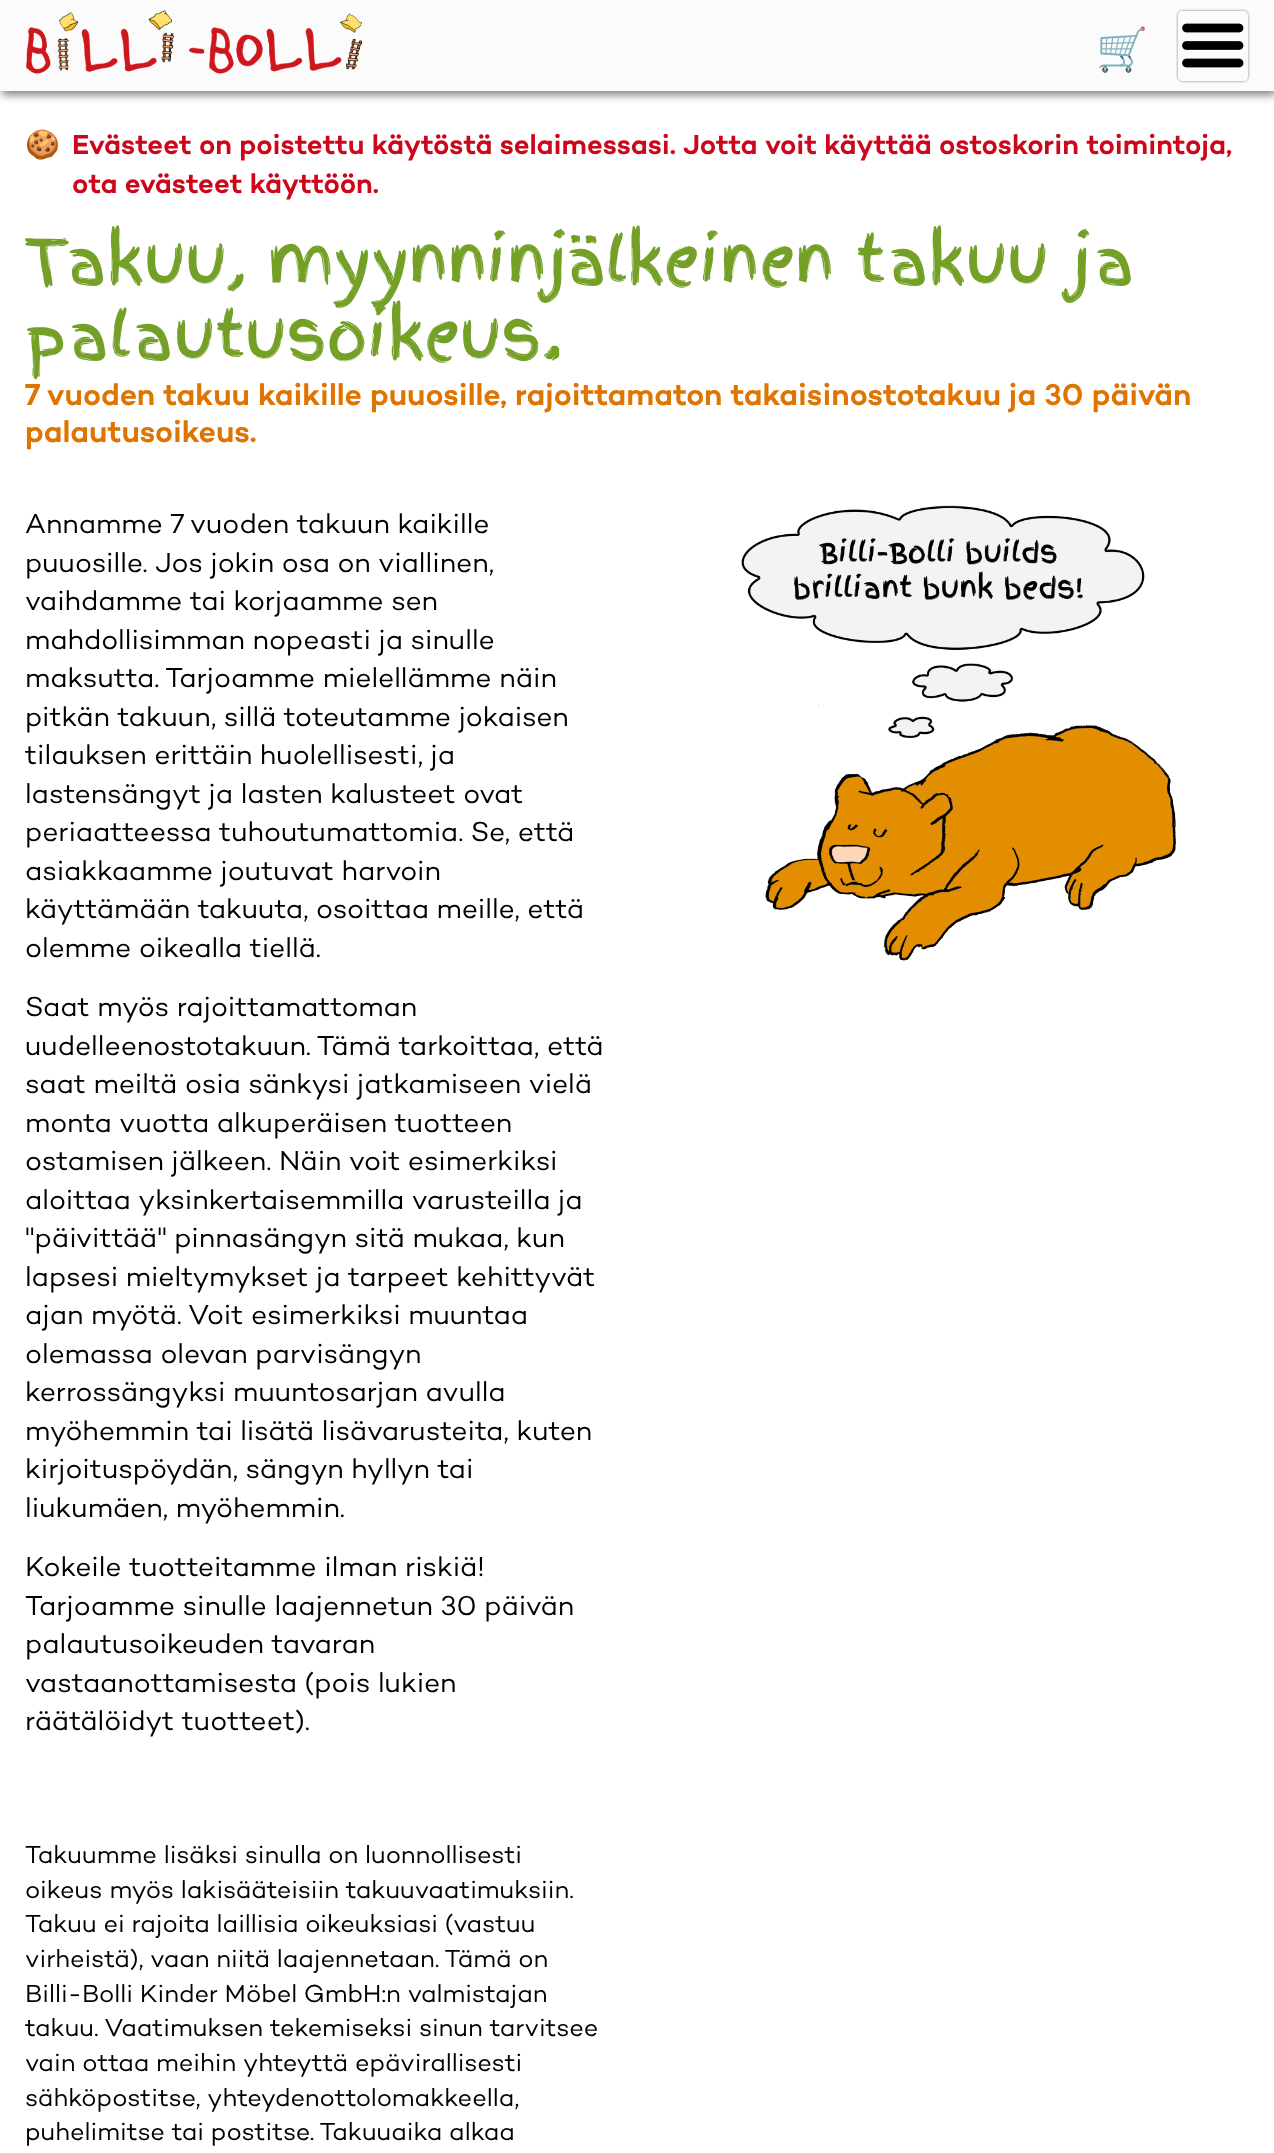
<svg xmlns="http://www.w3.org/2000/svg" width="1274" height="2153">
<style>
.a{font:bold 42px Noto Color Emoji;fill:#e07400}
.b{font:28px Noto Color Emoji;fill:#cd071b}
.c{font:28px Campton;fill:#cd071b}
.d{font:63px Finger Paint;fill:#74a027}
.e{font:30.8px Campton;fill:#e07400}
.f{font:28px 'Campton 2';fill:#000}
.g{font:25.2px 'Campton 2';fill:#000}
</style>
<defs>
<clipPath id="clip1"><path d="M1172 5h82v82h-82zm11 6h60c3 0 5 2 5 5v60c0 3-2 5-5 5h-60c-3 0-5-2-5-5v-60c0-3 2-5 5-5z" clip-rule="evenodd"/></clipPath>
</defs>
<rect width="100%" height="100%" fill="#fff"/>
<path fill="#808080" filter="blur(4px)" d="M2 4h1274v91H2z"/>
<path fill="#fbfbfb" d="M0 0h1274v91H0z"/>
<image href="1.png" x="26" y="10" width="337" height="64"/>
<g clip-path="url(#clip1)">
<rect fill="#808080" filter="blur(1.5px)" x="1178" y="11" width="70" height="70" rx="5"/>
</g>
<image href="2.png" x="1182" y="23" width="62" height="45"/>
<image href="3.png" x="741" y="505" width="435" height="456"/>
<text class="a" x="1096" y="64">🛒</text>
<text class="b" x="25" y="154">🍪</text>
<text class="c" x="72" y="154">Evästeet on poistettu käytöstä selaimessasi. Jotta voit käyttää ostoskorin toimintoja,</text>
<text class="c" x="72" y="193">ota evästeet käyttöön.</text>
<text class="d" x="25" y="284">Takuu, myynninjälkeinen takuu ja</text>
<text class="d" x="25" y="359">palautusoikeus.</text>
<text class="e" x="25" y="405">7 vuoden takuu kaikille puuosille, rajoittamaton takaisinostotakuu ja 30 päivän</text>
<text class="e" x="25" y="442">palautusoikeus.</text>
<text class="f" x="25" y="533">Annamme 7 vuoden takuun kaikille</text>
<text class="f" x="25" y="572">puuosille. Jos jokin osa on viallinen,</text>
<text class="f" x="25" y="610">vaihdamme tai korjaamme sen</text>
<text class="f" x="25" y="649">mahdollisimman nopeasti ja sinulle</text>
<text class="f" x="25" y="687">maksutta. Tarjoamme mielellämme näin</text>
<text class="f" x="25" y="726">pitkän takuun, sillä toteutamme jokaisen</text>
<text class="f" x="25" y="764">tilauksen erittäin huolellisesti, ja</text>
<text class="f" x="25" y="803">lastensängyt ja lasten kalusteet ovat</text>
<text class="f" x="25" y="841">periaatteessa tuhoutumattomia. Se, että</text>
<text class="f" x="25" y="880">asiakkaamme joutuvat harvoin</text>
<text class="f" x="25" y="918">käyttämään takuuta, osoittaa meille, että</text>
<text class="f" x="25" y="957">olemme oikealla tiellä.</text>
<text class="f" x="25" y="1016">Saat myös rajoittamattoman</text>
<text class="f" x="25" y="1055">uudelleenostotakuun. Tämä tarkoittaa, että</text>
<text class="f" x="25" y="1093">saat meiltä osia sänkysi jatkamiseen vielä</text>
<text class="f" x="25" y="1132">monta vuotta alkuperäisen tuotteen</text>
<text class="f" x="25" y="1170">ostamisen jälkeen. Näin voit esimerkiksi</text>
<text class="f" x="25" y="1209">aloittaa yksinkertaisemmilla varusteilla ja</text>
<text class="f" x="25" y="1247">"päivittää" pinnasängyn sitä mukaa, kun</text>
<text class="f" x="25" y="1286">lapsesi mieltymykset ja tarpeet kehittyvät</text>
<text class="f" x="25" y="1324">ajan myötä. Voit esimerkiksi muuntaa</text>
<text class="f" x="25" y="1363">olemassa olevan parvisängyn</text>
<text class="f" x="25" y="1401">kerrossängyksi muuntosarjan avulla</text>
<text class="f" x="25" y="1440">myöhemmin tai lisätä lisävarusteita, kuten</text>
<text class="f" x="25" y="1478">kirjoituspöydän, sängyn hyllyn tai</text>
<text class="f" x="25" y="1517">liukumäen, myöhemmin.</text>
<text class="f" x="25" y="1576">Kokeile tuotteitamme ilman riskiä!</text>
<text class="f" x="25" y="1615">Tarjoamme sinulle laajennetun 30 päivän</text>
<text class="f" x="25" y="1653">palautusoikeuden tavaran</text>
<text class="f" x="25" y="1692">vastaanottamisesta (pois lukien</text>
<text class="f" x="25" y="1730">räätälöidyt tuotteet).</text>
<text class="g" x="25" y="1863">Takuumme lisäksi sinulla on luonnollisesti</text>
<text class="g" x="25" y="1898">oikeus myös lakisääteisiin takuuvaatimuksiin.</text>
<text class="g" x="25" y="1932">Takuu ei rajoita laillisia oikeuksiasi (vastuu</text>
<text class="g" x="25" y="1967">virheistä), vaan niitä laajennetaan. Tämä on</text>
<text class="g" x="25" y="2002">Billi-Bolli Kinder Möbel GmbH:n valmistajan</text>
<text class="g" x="25" y="2036">takuu. Vaatimuksen tekemiseksi sinun tarvitsee</text>
<text class="g" x="25" y="2071">vain ottaa meihin yhteyttä epävirallisesti</text>
<text class="g" x="25" y="2106">sähköpostitse, yhteydenottolomakkeella,</text>
<text class="g" x="25" y="2140">puhelimitse tai postitse. Takuuaika alkaa</text>
</svg>
